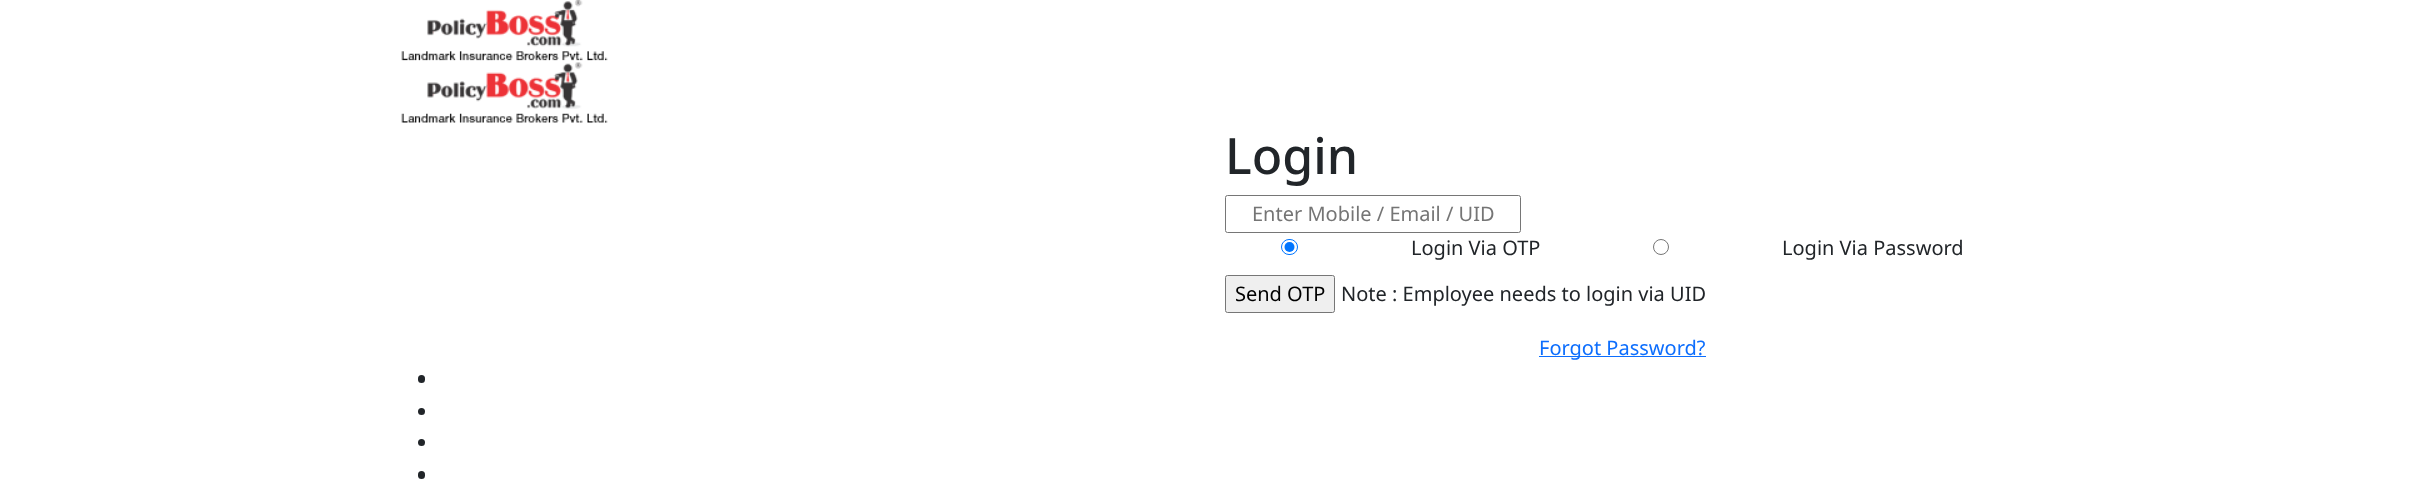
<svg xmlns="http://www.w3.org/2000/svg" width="2419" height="491">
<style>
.a{font:500 50px Noto Sans;fill:#212529}
.b{font:20px Noto Sans;fill:#757575}
.c{font:20px Noto Sans;fill:#212529}
.d{font:20px Noto Sans;fill:#000}
.e{font:20px Noto Sans;fill:#0d6efd}
</style>
<rect width="100%" height="100%" fill="#fff"/>
<image href="1.png" x="401" y="0" width="207" height="61"/>
<image href="2.png" x="401" y="62" width="207" height="61"/>
<rect fill="none" stroke="#767676" x="1225.5" y="195.5" width="295" height="37" rx="2"/>
<rect fill="none" stroke="#0075ff" x="1281.5" y="239.5" width="16" height="15" rx="7.5"/>
<circle fill="#0075ff" cx="1289.5" cy="247" r="5"/>
<circle fill="none" stroke="#767676" cx="1661" cy="247" r="7.5"/>
<rect fill="#efefef" stroke="#767676" x="1225.5" y="275.5" width="109" height="37" rx="2"/>
<path fill="#0d6efd" d="M1539 356h167v1H1539z"/>
<rect fill="#212529" x="418" y="375" width="7" height="8" rx="3.5"/>
<circle fill="#212529" cx="421.5" cy="411.5" r="3.5"/>
<circle fill="#212529" cx="421.5" cy="442.5" r="3.5"/>
<rect fill="#212529" x="418" y="471" width="7" height="8" rx="3.5"/>
<text class="a" x="1225" y="174">Login</text>
<text class="b" x="1252" y="221">Enter Mobile / Email / UID</text>
<text class="c" x="1411" y="255">Login Via OTP</text>
<text class="c" x="1782" y="255">Login Via Password</text>
<text class="d" x="1235" y="301">Send OTP</text>
<text class="c" x="1341" y="301">Note : Employee needs to login via UID</text>
<text class="e" x="1539" y="355">Forgot Password?</text>
</svg>
